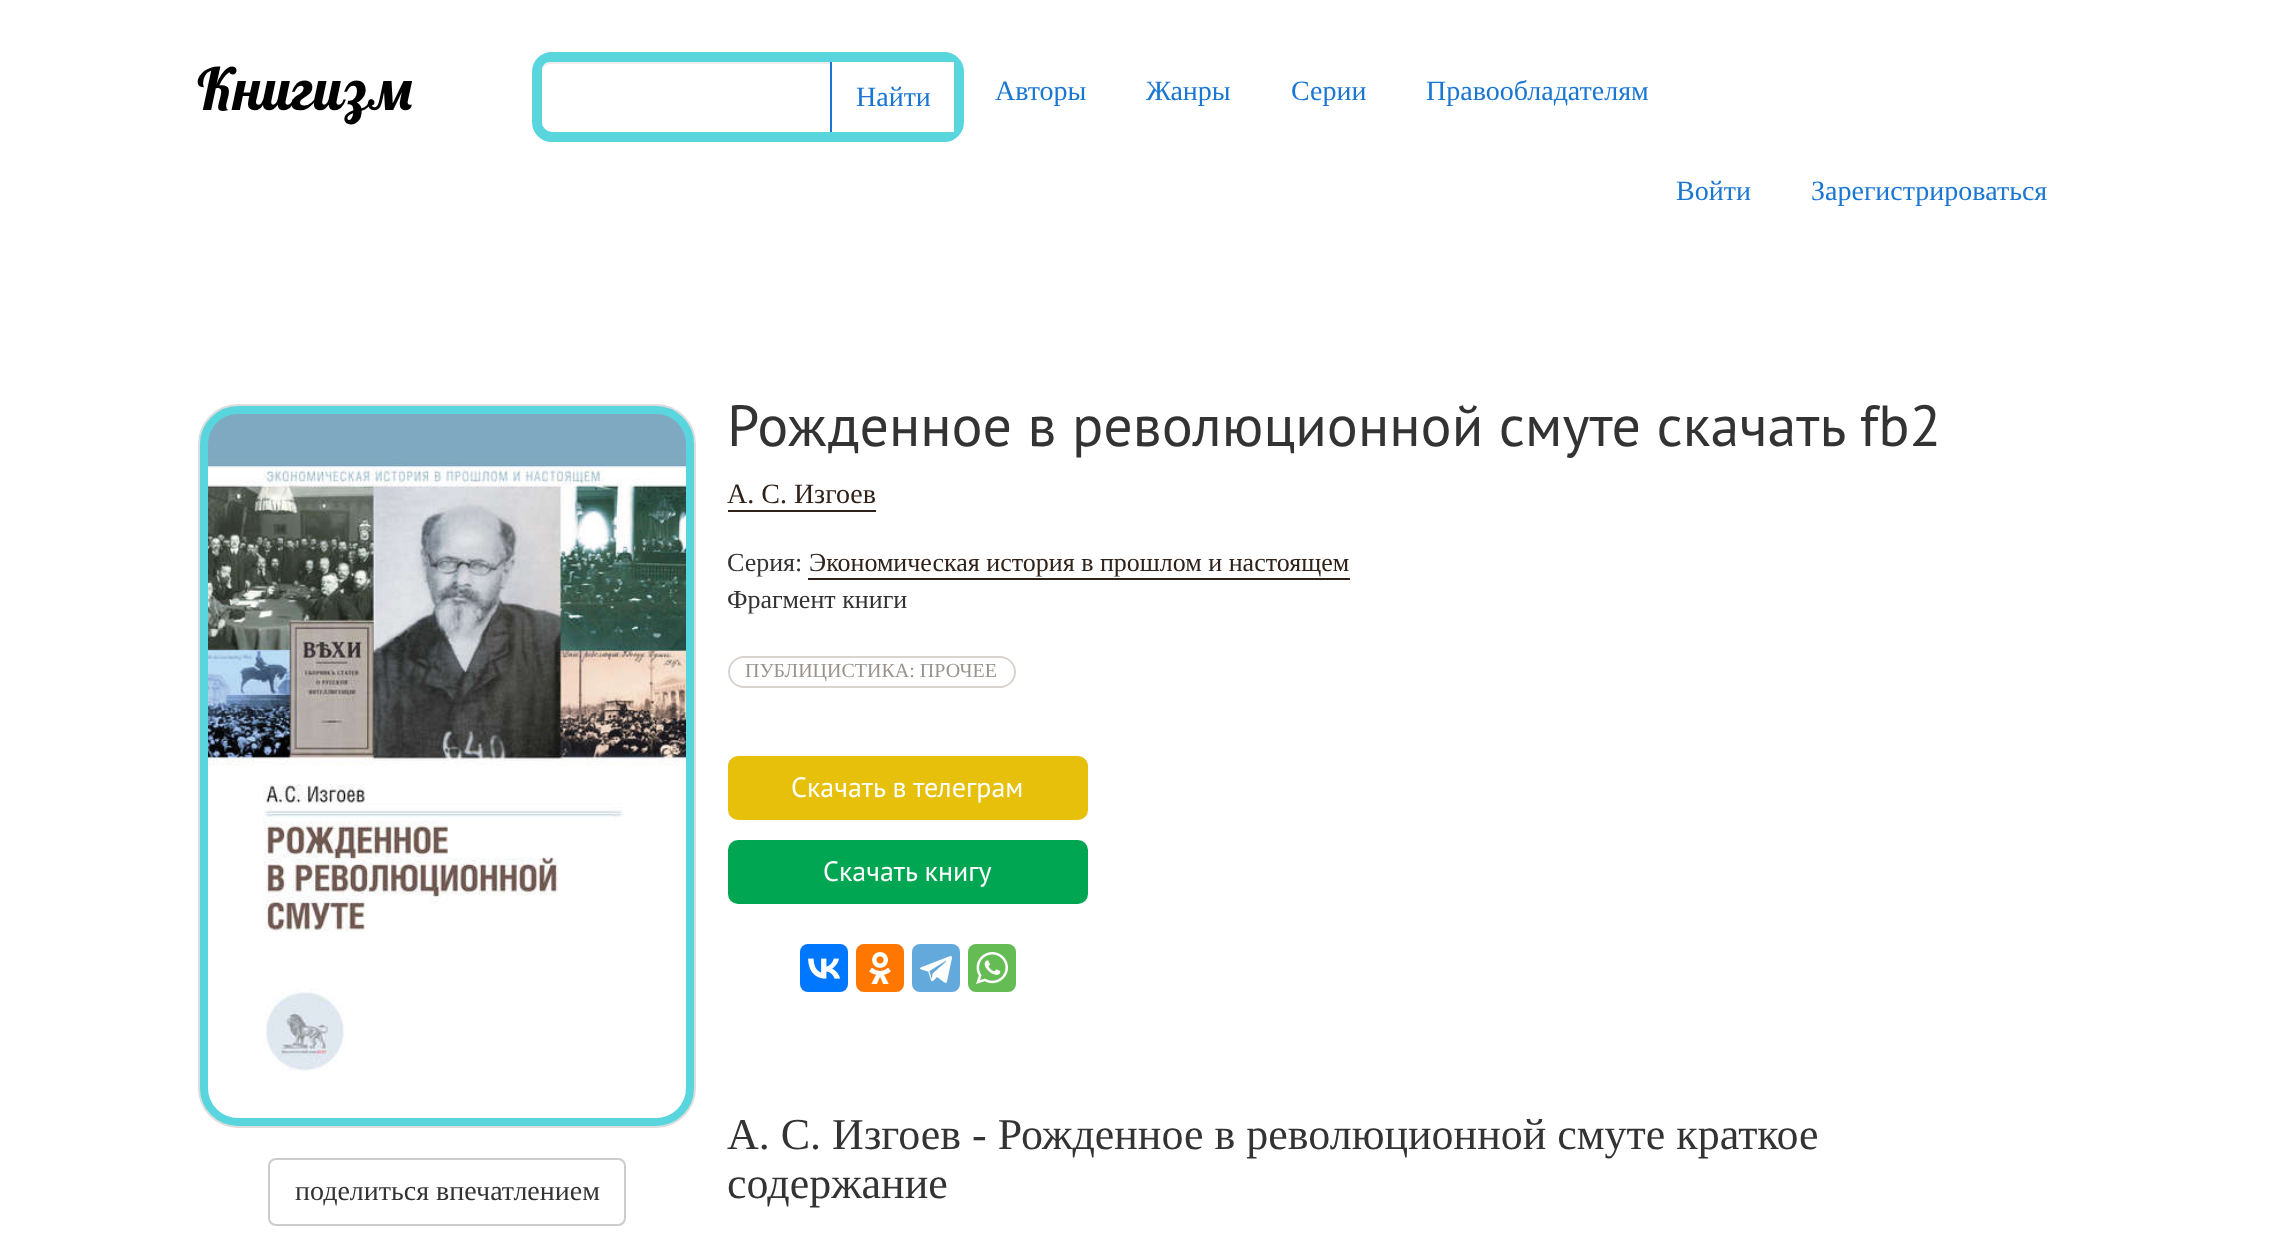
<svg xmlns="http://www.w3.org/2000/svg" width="2274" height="1237">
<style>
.a{font:58px Lobster;fill:#000}
.b{font:28px Liberation Serif;fill:#1976d2}
.c{font:28px Liberation Serif;fill:#333}
.d{font:58px PT Sans;fill:#333}
.e{font:28px Liberation Serif;fill:#302119}
.f{font:26px Liberation Serif;fill:#333}
.g{font:26px Liberation Serif;fill:#302119}
.h{font:20px Liberation Serif;fill:#9a938d}
.i{font:28px PT Sans;fill:#fff}
.j{font:44px Liberation Serif;fill:#333}
</style>
<rect width="100%" height="100%" fill="#fff"/>
<rect fill="none" stroke="#59d5de" stroke-width="10" x="537" y="57" width="422" height="80" rx="15"/>
<path fill="#fff" d="M550 62h282v68h-282c-4.5 0-8-3.5-8-8v-52c0-4.5 3.5-8 8-8z"/>
<path fill="#00000012" d="M550 64h282v-2h-282c-4 0-8 4-8 8v2c0-4 4-8 8-8z"/>
<path fill="#fff" d="M944 62h10v70H944z"/>
<path fill="#1976d2" d="M830 62h2v70H830z"/>
<rect fill="#59d5de" stroke="#ddd" stroke-width="2" x="199" y="405" width="496" height="722" rx="39"/>
<image href="1.png" x="208" y="414" width="478" height="704"/>
<rect fill="none" stroke="#ccc" stroke-width="2" x="269" y="1159" width="356" height="66" rx="7"/>
<path fill="#302119" d="M728 510h148v2H728z"/>
<path fill="#302119" d="M808 578h542v2H808z"/>
<rect fill="none" stroke="#d8d4d0" stroke-width="2" x="729" y="657" width="286" height="30" rx="15"/>
<rect fill="#e7c00b" stroke="#e7c00b" stroke-width="2" x="729" y="757" width="358" height="62" rx="9"/>
<rect fill="#00a651" stroke="#00a651" stroke-width="2" x="729" y="841" width="358" height="62" rx="9"/>
<rect fill="#07f" x="800" y="944" width="48" height="48" rx="8"/>
<image href="2.png" x="808" y="958" width="33" height="21"/>
<rect fill="#f70" x="856" y="944" width="48" height="48" rx="8"/>
<image href="3.png" x="869" y="952" width="22" height="32"/>
<rect fill="#64a9dc" x="912" y="944" width="48" height="48" rx="8"/>
<image href="4.png" x="920" y="956" width="32" height="27"/>
<rect fill="#65bc54" x="968" y="944" width="48" height="48" rx="8"/>
<image href="5.png" x="976" y="952" width="32" height="32"/>
<text class="a" x="197" y="110">Книгизм</text>
<text class="b" x="856" y="106">Найти</text>
<text class="b" x="995" y="100">Авторы</text>
<text class="b" x="1146" y="100">Жанры</text>
<text class="b" x="1291" y="100">Серии</text>
<text class="b" x="1426" y="100">Правообладателям</text>
<text class="b" x="1676" y="200">Войти</text>
<text class="b" x="1811" y="200">Зарегистрироваться</text>
<text class="c" x="295" y="1200">поделиться впечатлением</text>
<text class="d" x="727" y="446">Рожденное в революционной смуте скачать fb2</text>
<text class="e" x="727" y="503">А. С. Изгоев</text>
<text class="f" x="727" y="571">Серия:</text>
<text class="g" x="809" y="571">Экономическая история в прошлом и настоящем</text>
<text class="f" x="727" y="608">Фрагмент книги</text>
<text class="h" x="745" y="677">ПУБЛИЦИСТИКА: ПРОЧЕЕ</text>
<text class="i" x="791" y="797">Скачать в телеграм</text>
<text class="i" x="823" y="881">Скачать книгу</text>
<text class="j" x="727" y="1149">А. С. Изгоев - Рожденное в революционной смуте краткое</text>
<text class="j" x="727" y="1198">содержание</text>
</svg>
